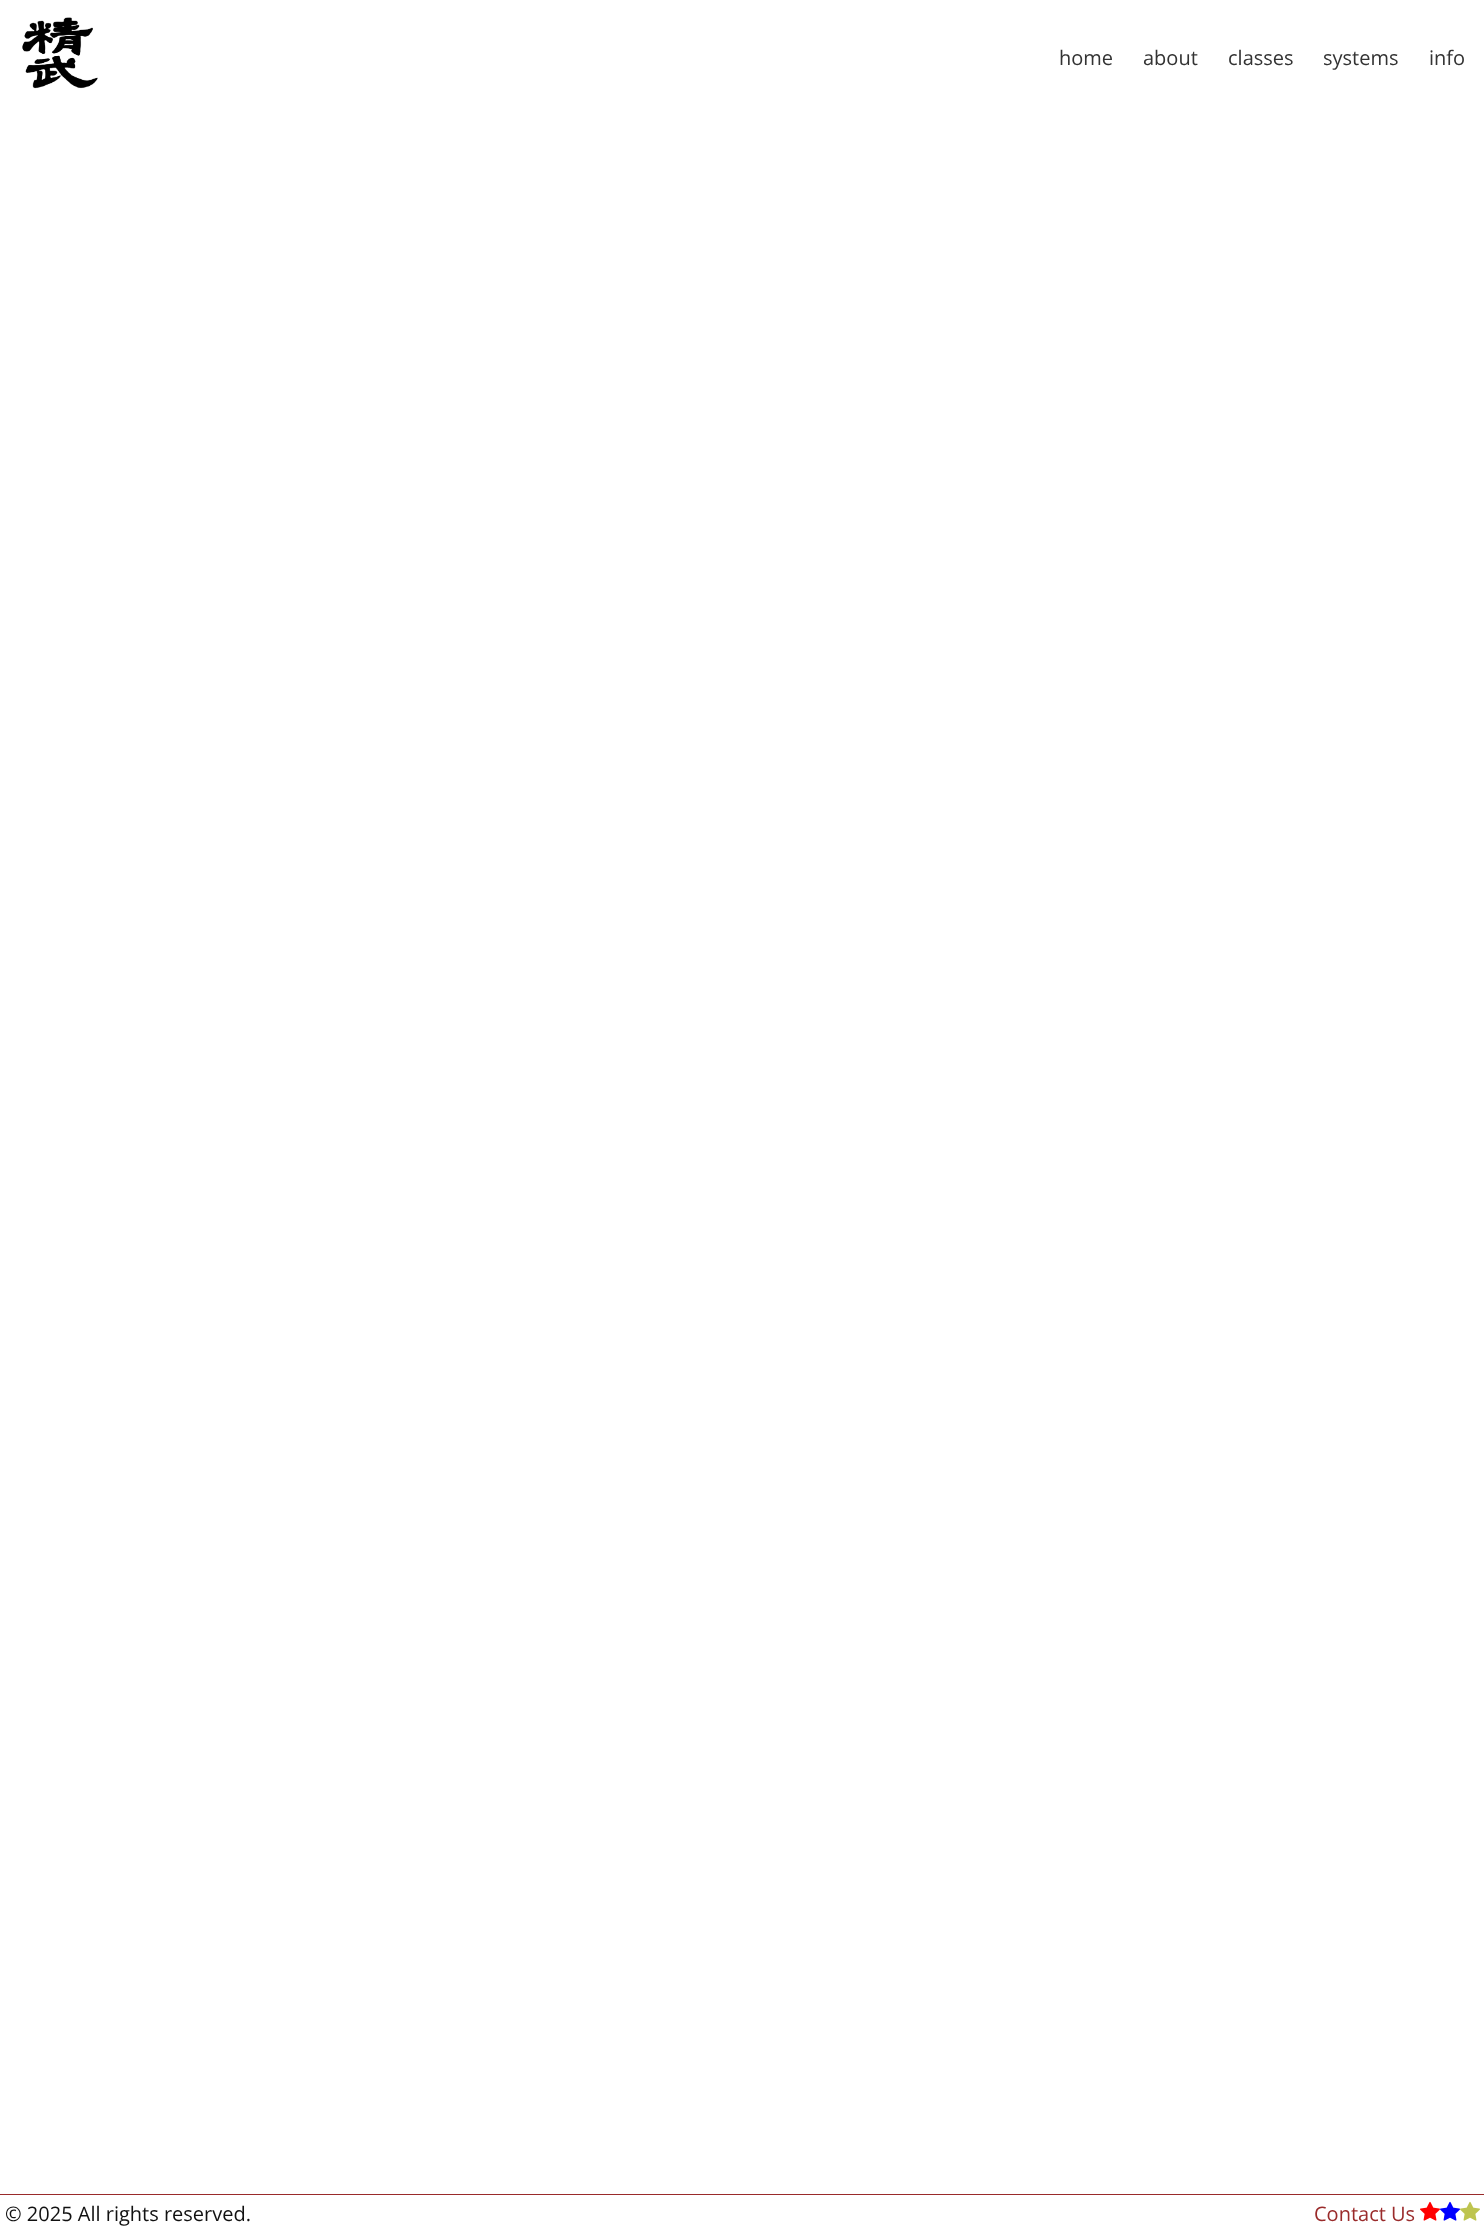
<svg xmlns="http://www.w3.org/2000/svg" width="1484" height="2232">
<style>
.a{font:20px Open Sans;fill:#333}
.b{font:20px Open Sans;fill:#111}
.c{font:20px Open Sans;fill:#9a2b2b}
</style>
<rect width="100%" height="100%" fill="#fff"/>
<image href="1.png" x="22" y="17" width="76" height="72"/>
<path fill="#9a2b2b" d="M0 2194h1484v1H0z"/>
<image href="2.png" x="1420" y="2201" width="20" height="20"/>
<image href="3.png" x="1440" y="2201" width="20" height="20"/>
<image href="4.png" x="1460" y="2201" width="20" height="20"/>
<text class="a" x="1059" y="65">home</text>
<text class="a" x="1143" y="65">about</text>
<text class="a" x="1228" y="65">classes</text>
<text class="a" x="1323" y="65">systems</text>
<text class="a" x="1429" y="65">info</text>
<text class="b" x="5" y="2221">© 2025 All rights reserved.</text>
<text class="c" x="1314" y="2221">Contact Us</text>
</svg>
